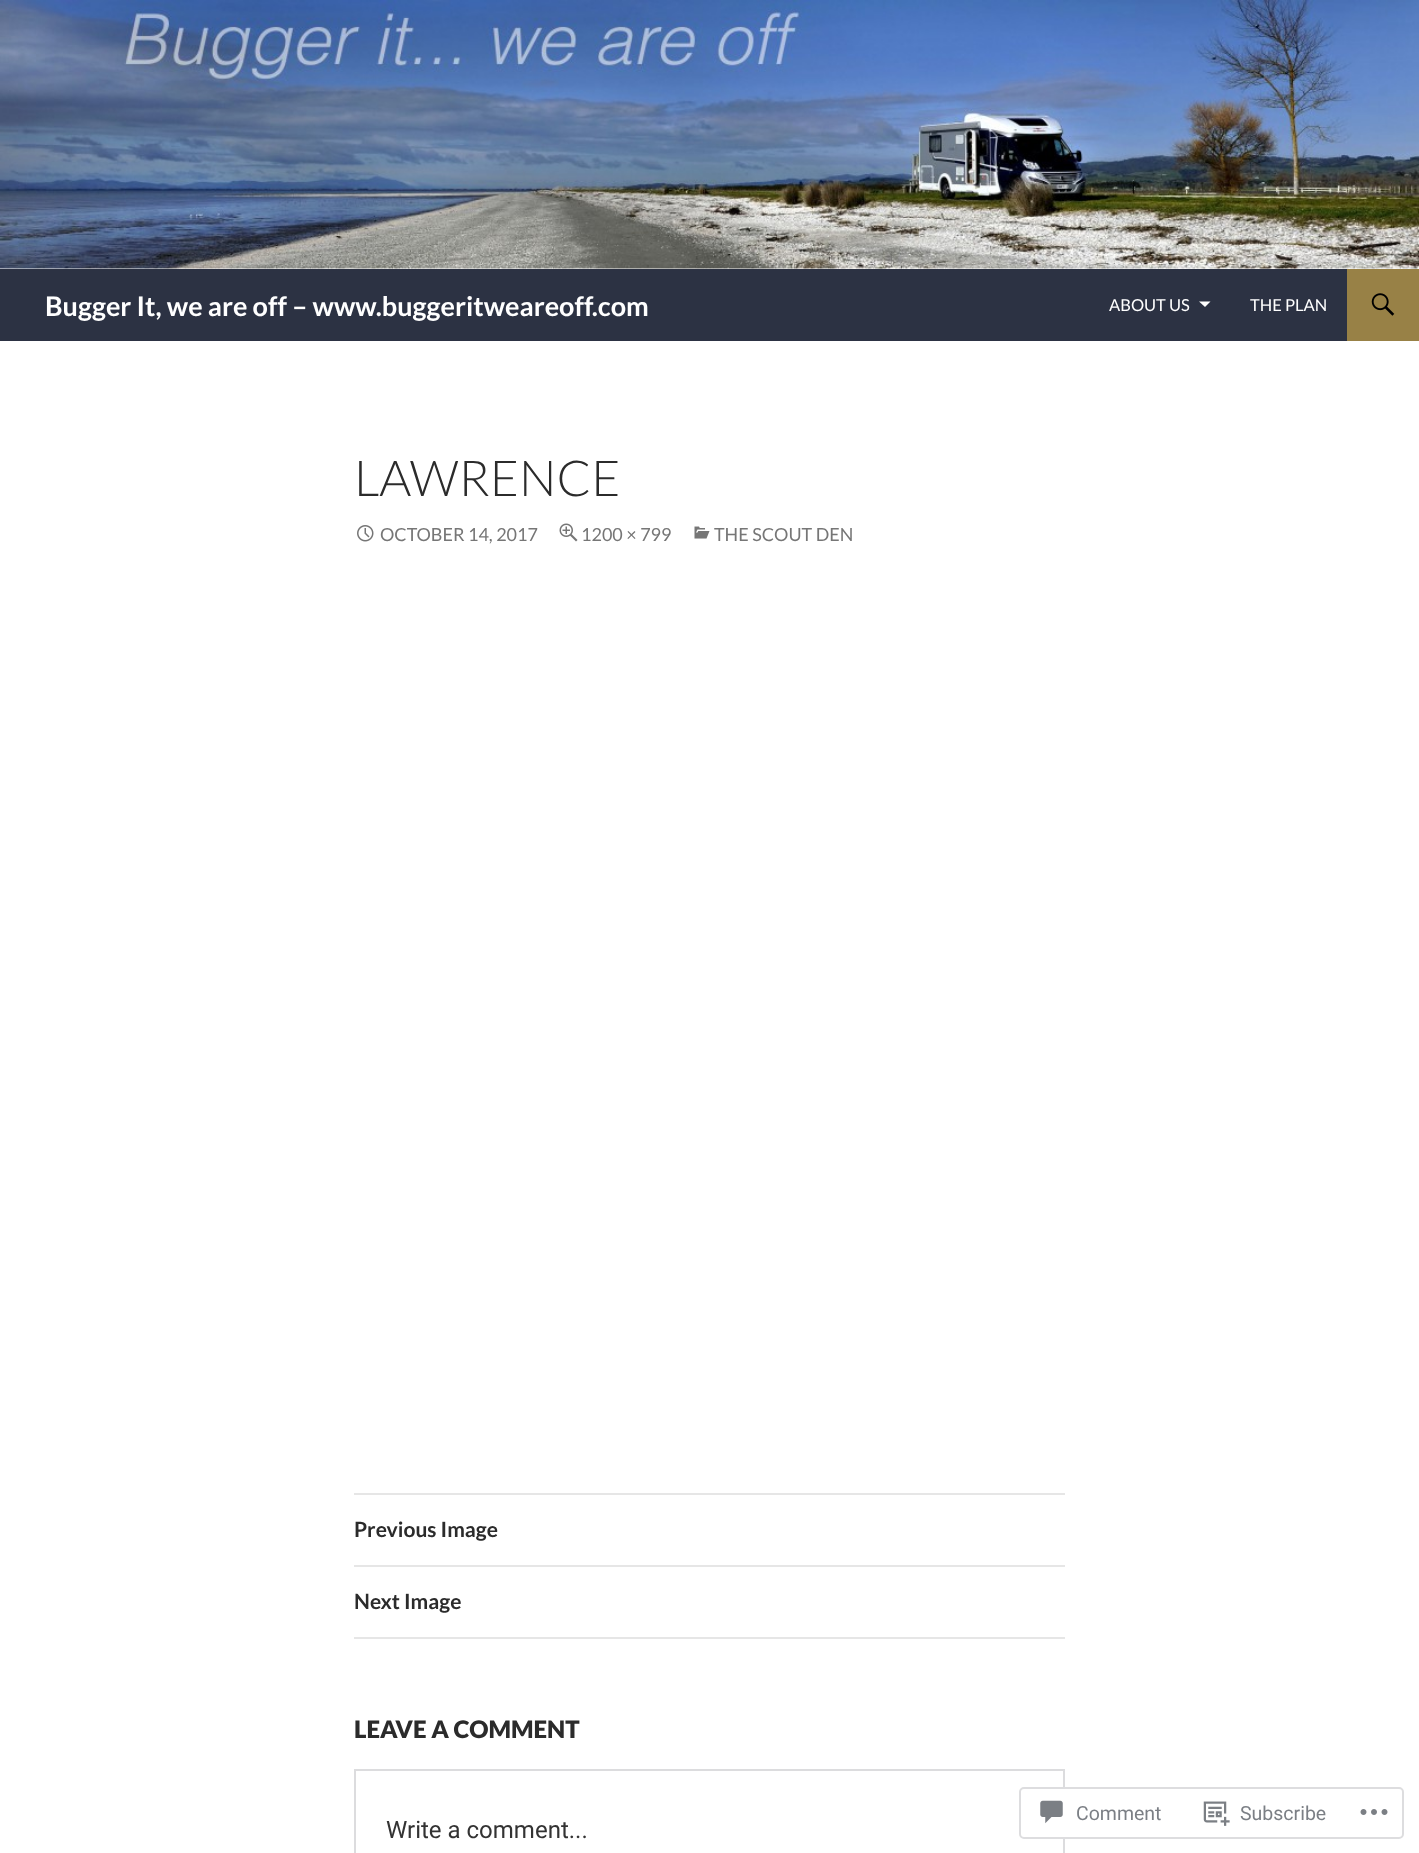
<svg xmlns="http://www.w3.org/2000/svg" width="1419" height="1853">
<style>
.a{font:bold 27px Lato;fill:#fff}
.b{font:16.5px Lato;fill:#fff}
.c{font:300 49.5px Lato;fill:#2b2b2b}
.d{font:18px Lato;fill:#767676}
.e{font:bold 21px Lato;fill:#2b2b2b}
.f{font:900 24px Lato;fill:#2b2b2b}
.g{font:24px Roboto;fill:#333}
.h{font:19.5px Roboto;fill:#7b7f85}
</style>
<rect width="100%" height="100%" fill="#fff"/>
<image href="1.png" x="0" y="0" width="1419" height="269"/>
<path fill="#2c3243" d="M0 269h1347v72H0z"/>
<path fill="#fff" d="M1199 301.5h11.5l-5.5 5.5z"/>
<path fill="#988146" d="M1347 269h72v72H1347z"/>
<image href="2.png" x="1371" y="293" width="24" height="23"/>
<image href="3.png" x="357" y="525" width="17" height="17"/>
<image href="4.png" x="559" y="523" width="19" height="19"/>
<image href="5.png" x="694" y="526" width="16" height="13"/>
<path fill="#e6e6e6" d="M354 1493h711v2H354z"/>
<path fill="#e6e6e6" d="M354 1565h711v2H354z"/>
<path fill="#e6e6e6" d="M354 1637h711v2H354z"/>
<path fill="none" stroke="#dcdcde" stroke-width="2" d="M355 1770h709v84H355z"/>
<rect fill="#fffffffa" stroke="#dddddf" stroke-width="2" x="1020" y="1788" width="383" height="50" rx="4"/>
<image href="6.png" x="1040" y="1800" width="23" height="24"/>
<image href="7.png" x="1203" y="1801" width="27" height="25"/>
<image href="8.png" x="1360" y="1809" width="28" height="6"/>
<text class="a" x="45" y="316">Bugger It, we are off – www.buggeritweareoff.com</text>
<text class="b" x="1109" y="311">ABOUT US</text>
<text class="b" x="1250" y="311">THE PLAN</text>
<text class="c" x="354" y="496">LAWRENCE</text>
<text class="d" x="380" y="541">OCTOBER 14, 2017</text>
<text class="d" x="581" y="541">1200 × 799</text>
<text class="d" x="714" y="541">THE SCOUT DEN</text>
<text class="e" x="354" y="1537">Previous Image</text>
<text class="e" x="354" y="1609">Next Image</text>
<text class="f" x="354" y="1738">LEAVE A COMMENT</text>
<text class="g" x="386" y="1838">Write a comment...</text>
<text class="h" x="1076" y="1820">Comment</text>
<text class="h" x="1240" y="1820">Subscribe</text>
</svg>
